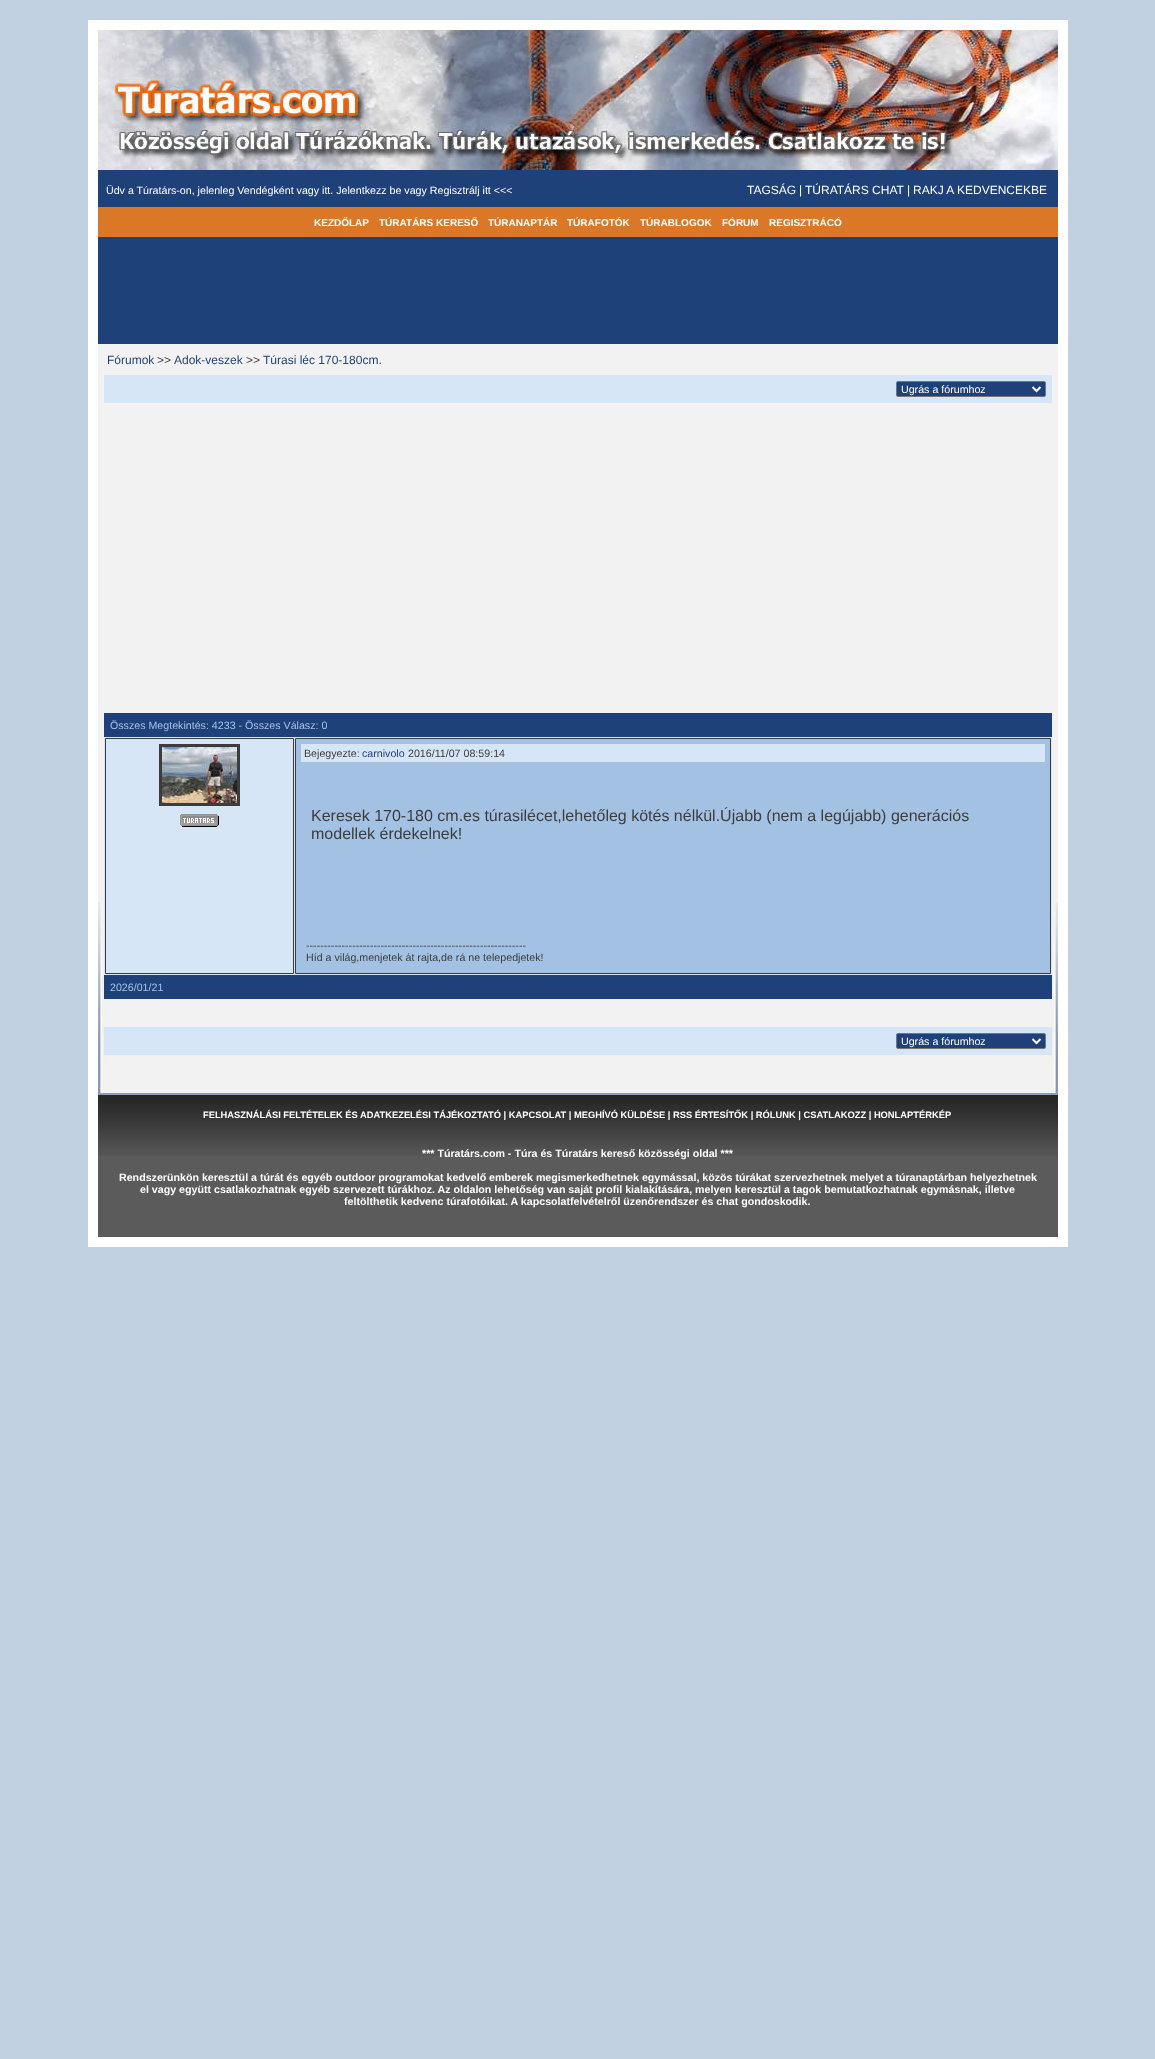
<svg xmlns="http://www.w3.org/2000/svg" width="1155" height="2059">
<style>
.a{font:10.67px Liberation Sans;fill:#fff}
.b{font:12px Liberation Sans;fill:#fff}
.c{font:bold 10px Liberation Sans;fill:#fff}
.d{font:12px Liberation Sans;fill:#1f417a}
.e{font:12px Liberation Sans;fill:#3c3c3c}
.f{font:10.67px Liberation Sans;fill:#a3c2e3}
.g{font:10.67px Liberation Sans;fill:#3c3c3c}
.h{font:10.67px Liberation Sans;fill:#1f417a}
.i{font:16px Liberation Sans;fill:#3c3c3c}
.j{font:bold 9.33px Liberation Sans;fill:#fff}
.k{font:bold 10.67px Liberation Sans;fill:#fff}
</style>
<rect width="100%" height="100%" fill="#c2d1e1"/>
<path fill="none" stroke="#fff" stroke-width="10" d="M93 25h970v1217H93z"/>
<path fill="#1f417a" d="M98 170h960v37H98z"/>
<image href="1.png" x="98" y="30" width="960" height="140"/>
<path fill="#db7827" d="M98 207h960v30H98z"/>
<path fill="#1e4179" d="M98 237h960v107H98z"/>
<path fill="#f2f2f2" d="M98 344h960v558H98z"/>
<image href="2.png" x="98" y="902" width="960" height="193"/>
<path fill="#d7e6f6" d="M104 375h948v28H104z"/>
<rect fill="#1f417a" stroke="#767676" x="896.5" y="381.5" width="149" height="15" rx="1.5"/>
<path fill="none" stroke="#fff" stroke-width="2" d="M1032.5 387l4 4l4-4"/>
<path fill="#1f417a" d="M104 713h948v24H104z"/>
<path fill="#d7e6f6" d="M104 737h948v238H104z"/>
<path fill="none" stroke="#3c3c3c" d="M105.5 738.5h188v235H105.5z"/>
<path fill="none" stroke="#3c3c3c" stroke-width="3" d="M160.5 745.5h78v59H160.5z"/>
<image href="3.png" x="162" y="747" width="75" height="56"/>
<image href="4.png" x="180" y="814" width="39" height="13"/>
<path fill="#a3c2e3" stroke="#3c3c3c" d="M295.5 738.5h755v235H295.5z"/>
<path fill="#d7e6f6" d="M301 744h744v18H301z"/>
<path fill="#1f417a" d="M104 975h948v24H104z"/>
<path fill="#d7e6f6" d="M104 1027h948v28H104z"/>
<rect fill="#1f417a" stroke="#767676" x="896.5" y="1033.5" width="149" height="15" rx="1.5"/>
<path fill="none" stroke="#fff" stroke-width="2" d="M1032.5 1039l4 4l4-4"/>
<path fill="#5b5b5b" d="M98 1156h960v81H98z"/>
<image href="5.png" x="98" y="1095" width="960" height="61"/>
<text class="a" x="106" y="194">Üdv a Túratárs-on, jelenleg Vendégként vagy itt. Jelentkezz be vagy Regisztrálj itt &lt;&lt;&lt;</text>
<text class="b" x="747" y="194">TAGSÁG</text>
<text class="b" x="799" y="194">|</text>
<text class="b" x="805" y="194">TÚRATÁRS CHAT</text>
<text class="b" x="907" y="194">|</text>
<text class="b" x="913" y="194">RAKJ A KEDVENCEKBE</text>
<text class="c" x="314" y="226">KEZDŐLAP</text>
<text class="c" x="379" y="226">TÚRATÁRS KERESŐ</text>
<text class="c" x="488" y="226">TÚRANAPTÁR</text>
<text class="c" x="567" y="226">TÚRAFOTÓK</text>
<text class="c" x="640" y="226">TÚRABLOGOK</text>
<text class="c" x="722" y="226">FÓRUM</text>
<text class="c" x="769" y="226">REGISZTRÁCÓ</text>
<text class="d" x="107" y="364">Fórumok</text>
<text class="e" x="157" y="364">&gt;&gt;</text>
<text class="d" x="174" y="364">Adok-veszek</text>
<text class="e" x="246" y="364">&gt;&gt;</text>
<text class="d" x="263" y="364">Túrasi léc 170-180cm.</text>
<text class="a" x="901" y="393">Ugrás a fórumhoz</text>
<text class="f" x="110" y="729">Összes Megtekintés: 4233 - Összes Válasz: 0</text>
<text class="g" x="304" y="757">Bejegyezte:</text>
<text class="h" x="362" y="757">carnivolo</text>
<text class="g" x="408" y="757">2016/11/07 08:59:14</text>
<text class="i" x="311" y="821">Keresek 170-180 cm.es túrasilécet,lehetőleg kötés nélkül.Újabb (nem a legújabb) generációs</text>
<text class="i" x="311" y="839">modellek érdekelnek!</text>
<text class="g" x="306" y="949">--------------------------------------------------------------</text>
<text class="g" x="306" y="961">Híd a világ,menjetek át rajta,de rá ne telepedjetek!</text>
<text class="f" x="110" y="991">2026/01/21</text>
<text class="a" x="901" y="1045">Ugrás a fórumhoz</text>
<text class="j" x="203" y="1118">FELHASZNÁLÁSI FELTÉTELEK ÉS ADATKEZELÉSI TÁJÉKOZTATÓ | KAPCSOLAT | MEGHÍVÓ KÜLDÉSE | RSS ÉRTESÍTŐK | RÓLUNK | CSATLAKOZZ | HONLAPTÉRKÉP</text>
<text class="k" x="422" y="1157">*** Túratárs.com - Túra és Túratárs kereső közösségi oldal ***</text>
<text class="k" x="119" y="1181">Rendszerünkön keresztül a túrát és egyéb outdoor programokat kedvelő emberek megismerkedhetnek egymással, közös túrákat szervezhetnek melyet a túranaptárban helyezhetnek</text>
<text class="k" x="140" y="1193">el vagy együtt csatlakozhatnak egyéb szervezett túrákhoz. Az oldalon lehetőség van saját profil kialakítására, melyen keresztül a tagok bemutatkozhatnak egymásnak, illetve</text>
<text class="k" x="344" y="1205">feltölthetik kedvenc túrafotóikat. A kapcsolatfelvételről üzenőrendszer és chat gondoskodik.</text>
</svg>
